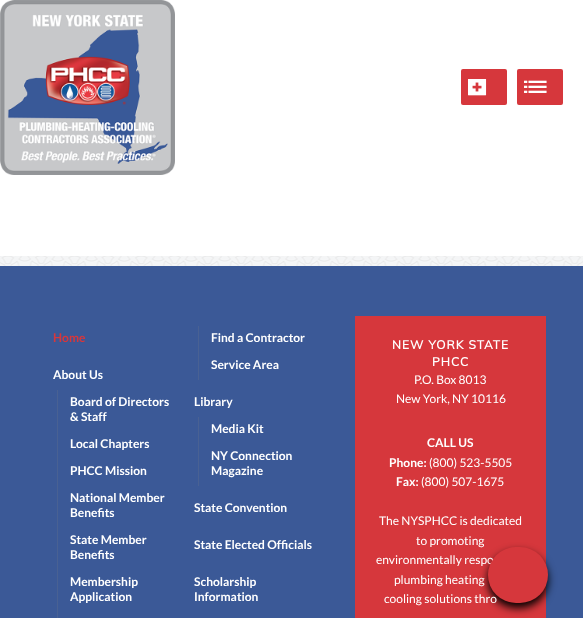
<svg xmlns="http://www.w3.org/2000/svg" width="583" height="618">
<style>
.a{font:32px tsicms;fill:#fff}
.b{font:bold 12px Lato;fill:#d6373c}
.c{font:bold 12px Lato;fill:#fff}
.d{font:bold 12px Muli;letter-spacing:1px;fill:#fff}
.e{font:12px Lato;fill:#fff}
</style>
<rect width="100%" height="100%" fill="#fff"/>
<image href="1.png" x="0" y="256" width="583" height="10"/>
<image href="2.png" x="0" y="0" width="175" height="175"/>
<rect fill="#d6373c" x="461" y="69" width="46" height="36" rx="2"/>
<rect fill="#d6373c" x="517" y="69" width="46" height="36" rx="2"/>
<path fill="#3b5997" d="M0 266h583v352H0z"/>
<path fill="#496193" d="M198 326h1v54H198z"/>
<path fill="#496193" d="M57 390h1v228H57z"/>
<path fill="#496193" d="M198 417h1v69H198z"/>
<path fill="#d6373c" d="M355 316h191v302H355z"/>
<rect fill="#000" filter="blur(4px)" x="488" y="552" width="60" height="56" rx="28"/>
<text class="a" x="468" y="101">!</text>
<text class="a" x="524" y="101">a</text>
<text class="b" x="53" y="342">Home</text>
<text class="c" x="211" y="342">Find a Contractor</text>
<text class="c" x="211" y="369">Service Area</text>
<text class="c" x="53" y="379">About Us</text>
<text class="c" x="70" y="406">Board of Directors</text>
<text class="c" x="70" y="421">&amp; Staff</text>
<text class="c" x="70" y="448">Local Chapters</text>
<text class="c" x="70" y="475">PHCC Mission</text>
<text class="c" x="70" y="502">National Member</text>
<text class="c" x="70" y="517">Benefits</text>
<text class="c" x="70" y="544">State Member</text>
<text class="c" x="70" y="559">Benefits</text>
<text class="c" x="70" y="586">Membership</text>
<text class="c" x="70" y="601">Application</text>
<text class="c" x="194" y="406">Library</text>
<text class="c" x="211" y="433">Media Kit</text>
<text class="c" x="211" y="460">NY Connection</text>
<text class="c" x="211" y="475">Magazine</text>
<text class="c" x="194" y="512">State Convention</text>
<text class="c" x="194" y="549">State Elected Officials</text>
<text class="c" x="194" y="586">Scholarship</text>
<text class="c" x="194" y="601">Information</text>
<text class="d" x="392" y="349">NEW YORK STATE</text>
<text class="d" x="432" y="366">PHCC</text>
<text class="e" x="414" y="384">P.O. Box 8013</text>
<text class="e" x="396" y="403">New York, NY 10116</text>
<text class="c" x="427" y="447">CALL US</text>
<text class="c" x="389" y="467">Phone:</text>
<text class="e" x="429" y="467">(800) 523-5505</text>
<text class="c" x="396" y="486">Fax:</text>
<text class="e" x="421" y="486">(800) 507-1675</text>
<text class="e" x="379" y="525">The NYSPHCC is dedicated</text>
<text class="e" x="416" y="545">to promoting</text>
<text class="e" x="376" y="564">environmentally respo</text>
<text class="e" x="394" y="584">plumbing heating</text>
<text class="e" x="384" y="603">cooling solutions thro</text>
<rect fill="#d6373c" x="488" y="547" width="60" height="56" rx="28"/>
</svg>
